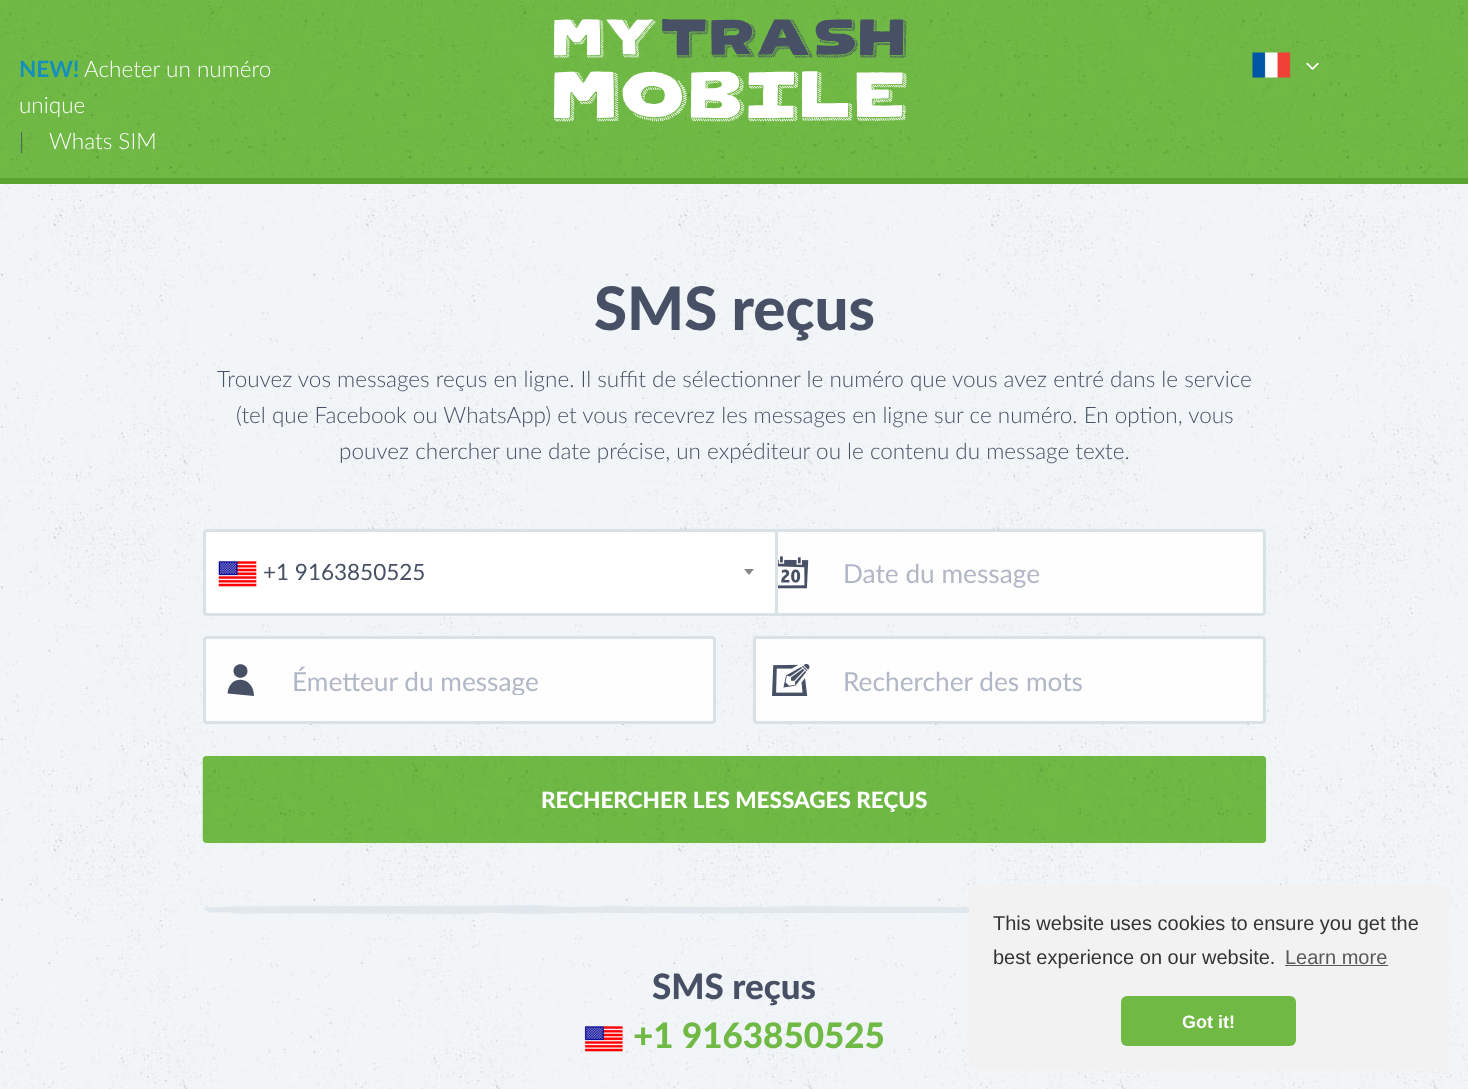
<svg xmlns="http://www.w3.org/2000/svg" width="1468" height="1089">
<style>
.a{font:bold 22.5px Lato;fill:#168fba}
.b{font:300 22.5px Lato;fill:#fefefe}
.c{font:300 22.5px Lato;fill:#475064}
.d{font:900 60px Lato;fill:#475064}
.e{font:22.5px Lato;fill:#475064}
.f{font:26.25px Lato;fill:#b1b7c6}
.g{font:900 22.5px Lato;fill:#fefefe}
.h{font:900 35px Lato;fill:#475064}
.i{font:900 35px Lato;fill:#6fb944}
.j{font:20px Liberation Sans;fill:#333}
.k{font:20px Liberation Sans;fill:#595959}
.l{font:bold 18px Liberation Sans;fill:#fefefe}
</style>
<defs>
<clipPath id="clip1"><path d="M293 664h402v31H293z"/></clipPath>
</defs>
<rect width="100%" height="100%" fill="#fff"/>
<image href="1.png" x="0" y="184" width="1468" height="905"/>
<path fill="#5ba433" d="M0 178v6h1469v-178v172z"/>
<path fill="#6fb944" d="M0 177h1468v1H0z"/>
<image href="2.png" x="0" y="0" width="1468" height="178"/>
<image href="3.png" x="553" y="19" width="354" height="103"/>
<image href="4.png" x="1252" y="52" width="39" height="26"/>
<image href="5.png" x="1306" y="63" width="13" height="7"/>
<rect fill="#fefefe" x="753" y="529" width="513" height="87" rx="4"/>
<image href="7.png" x="778" y="556" width="31" height="33"/>
<rect fill="none" stroke="#d8e1e6" stroke-width="3" x="754.5" y="530.5" width="510" height="84" rx="2.5"/>
<rect fill="#fff" stroke="#d8e1e6" stroke-width="3" x="204.5" y="530.5" width="572" height="84" rx="2.5"/>
<image href="6.png" x="218" y="561" width="39" height="26"/>
<path fill="#888" d="M744 569h10l-5 6z"/>
<rect fill="#fefefe" x="203" y="636" width="513" height="88" rx="4"/>
<path fill="#475064" fill-rule="evenodd" d="M254 696c0-19.5-24.5-22.5-26.5-2.5zm-20.5-25c0 9 14 9 14 0c0-9-14-9-14 0"/>
<rect fill="none" stroke="#d8e1e6" stroke-width="3" x="204.5" y="637.5" width="510" height="85" rx="2.5"/>
<rect fill="#fefefe" x="753" y="636" width="513" height="88" rx="4"/>
<image href="8.png" x="772" y="664" width="38" height="32"/>
<rect fill="none" stroke="#d8e1e6" stroke-width="3" x="754.5" y="637.5" width="510" height="85" rx="2.5"/>
<rect fill="#6fb944" x="203" y="756" width="1063" height="87" rx="4"/>
<image href="9.png" x="202" y="756" width="1065" height="87"/>
<image href="10.png" x="203" y="905" width="766" height="10"/>
<image href="11.png" x="584" y="1026" width="39" height="26"/>
<rect fill="#f2f2f2" x="969" y="885" width="480" height="185" rx="6"/>
<path fill="#595959" d="M1285 965h103v1H1285z"/>
<rect fill="#6fb944" x="1121" y="996" width="175" height="50" rx="6"/>
<text class="a" x="19" y="77">NEW!</text>
<text class="b" x="84" y="77">Acheter un numéro</text>
<text class="b" x="19" y="113">unique</text>
<text class="c" x="19" y="149">|</text>
<text class="b" x="49" y="149">Whats SIM</text>
<text class="d" x="594" y="330">SMS reçus</text>
<text class="c" x="217" y="387">Trouvez vos messages reçus en ligne. Il suffit de sélectionner le numéro que vous avez entré dans le service</text>
<text class="c" x="236" y="423">(tel que Facebook ou WhatsApp) et vous recevrez les messages en ligne sur ce numéro. En option, vous</text>
<text class="c" x="339" y="459">pouvez chercher une date précise, un expéditeur ou le contenu du message texte.</text>
<text class="e" x="263" y="580">+1 9163850525</text>
<text class="f" x="843" y="583">Date du message</text>
<g clip-path="url(#clip1)">
<text class="f" x="292" y="691">Émetteur du message</text>
</g>
<text class="f" x="843" y="691">Rechercher des mots</text>
<text class="g" x="541" y="808">RECHERCHER LES MESSAGES REÇUS</text>
<text class="h" x="652" y="999">SMS reçus</text>
<text class="i" x="633" y="1048">+1 9163850525</text>
<text class="j" x="993" y="930">This website uses cookies to ensure you get the</text>
<text class="j" x="993" y="964">best experience on our website.</text>
<text class="k" x="1285" y="964">Learn more</text>
<text class="l" x="1182" y="1028">Got it!</text>
</svg>
